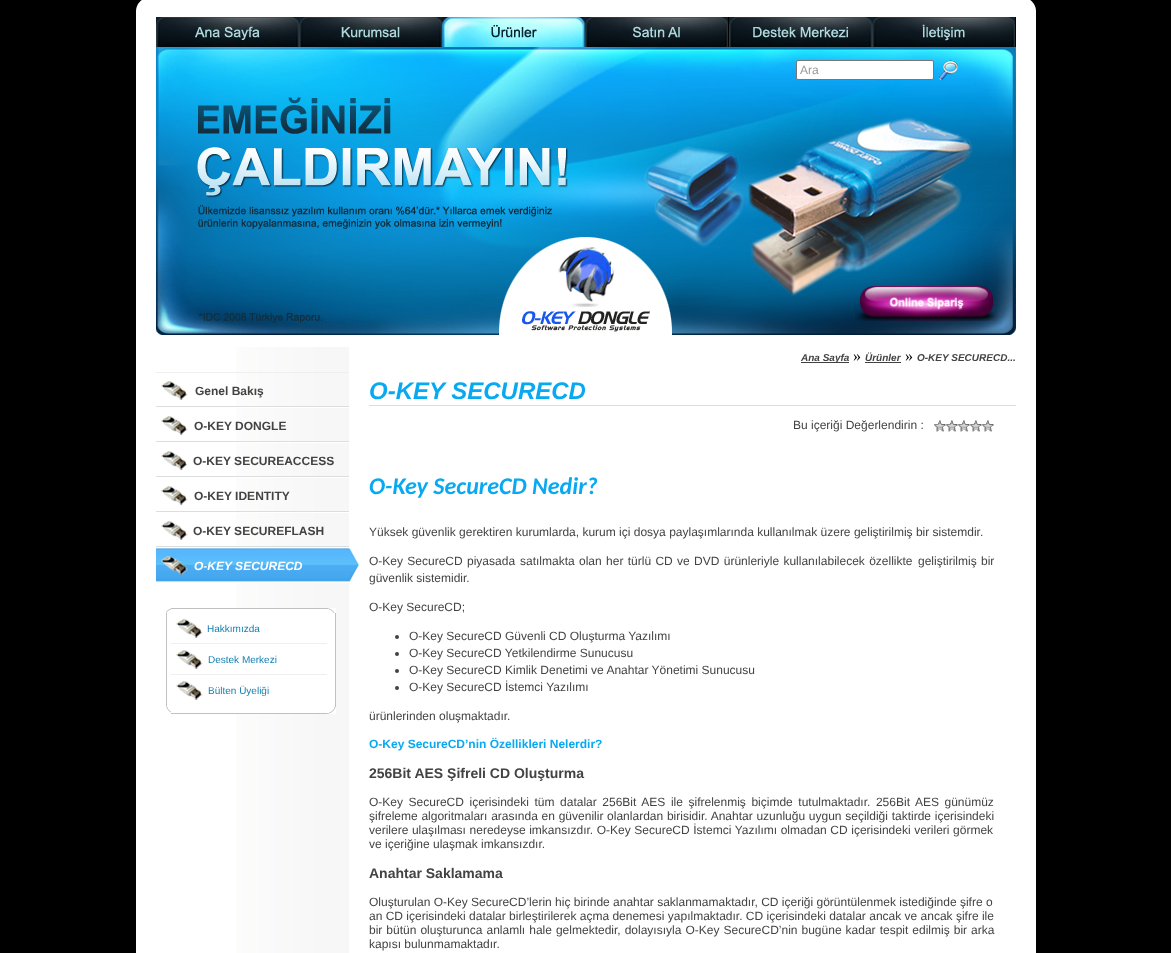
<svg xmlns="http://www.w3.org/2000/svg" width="1171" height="953">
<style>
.a{font:12px Liberation Sans;fill:#999}
.b{font:italic bold 10px Liberation Sans;fill:#444242}
.c{font:16px Liberation Serif;fill:#000}
.d{font:bold 12px Liberation Sans;fill:#444242}
.e{font:italic bold 12px Liberation Sans;fill:#fff}
.f{font:10px Liberation Sans;fill:#1681b2}
.g{font:italic bold 24px Liberation Sans;fill:#09a9f2}
.h{font:12px Liberation Sans;fill:#444242}
.i{font:italic bold 24px Carlito;fill:#09a9f2}
.j{font:bold 12px Liberation Sans;fill:#09a9f2}
.k{font:bold 14px Liberation Sans;fill:#444242}
</style>
<rect width="100%" height="100%" fill="#000"/>
<image href="1.png" x="136" y="0" width="20" height="17"/>
<path fill="#fff" d="M156 0h860v17H156z"/>
<image href="2.png" x="1016" y="0" width="20" height="17"/>
<path fill="#fff" d="M136 17h20v936H136z"/>
<image href="3.png" x="156" y="17" width="143" height="30"/>
<image href="4.png" x="299" y="17" width="143" height="30"/>
<image href="5.png" x="442" y="17" width="143" height="30"/>
<image href="6.png" x="585" y="17" width="143" height="30"/>
<image href="7.png" x="729" y="17" width="143" height="30"/>
<image href="8.png" x="872" y="17" width="143" height="30"/>
<path fill="#fff" d="M156 335h860v618H156z"/>
<image href="9.png" x="156" y="47" width="860" height="288"/>
<rect fill="#fff" stroke="#767676" x="796.5" y="60.5" width="137" height="19" rx="1.5"/>
<image href="10.png" x="939" y="60" width="19" height="20"/>
<image href="11.png" x="855" y="286" width="143" height="35"/>
<image href="12.png" x="236" y="347" width="113" height="25"/>
<path fill="#424040" d="M801 362h48v1H801z"/>
<path fill="#424040" d="M865 362h36v1H865z"/>
<image href="13.png" x="236" y="373" width="113" height="580"/>
<path fill="#efefef" d="M156 372h193v1H156z"/>
<image href="14.png" x="156" y="406" width="193" height="2"/>
<image href="15.png" x="161" y="381" width="27" height="19"/>
<image href="14.png" x="156" y="441" width="193" height="2"/>
<image href="15.png" x="161" y="416" width="27" height="19"/>
<image href="14.png" x="156" y="476" width="193" height="2"/>
<image href="15.png" x="161" y="451" width="27" height="19"/>
<image href="14.png" x="156" y="511" width="193" height="2"/>
<image href="15.png" x="161" y="486" width="27" height="19"/>
<image href="14.png" x="156" y="546" width="193" height="2"/>
<image href="15.png" x="161" y="521" width="27" height="19"/>
<image href="16.png" x="156" y="548" width="193" height="35"/>
<image href="17.png" x="161" y="556" width="27" height="19"/>
<path fill="#fff" d="M236 608h100v106H236z"/>
<image href="18.png" x="166" y="608" width="5" height="5"/>
<path fill="#c0c0c0" d="M171 608h156v1H171z"/>
<image href="19.png" x="327" y="608" width="8" height="5"/>
<path fill="#c0c0c0" d="M166 613h1v92H166z"/>
<image href="15.png" x="176" y="619" width="27" height="19"/>
<path fill="#efefef" d="M171 643h156v1H171z"/>
<image href="15.png" x="176" y="650" width="27" height="19"/>
<path fill="#efefef" d="M171 674h156v1H171z"/>
<image href="15.png" x="176" y="681" width="27" height="19"/>
<path fill="#c0c0c0" d="M335 613h1v92H335z"/>
<image href="20.png" x="166" y="705" width="5" height="8"/>
<path fill="#c0c0c0" d="M171 713h156v1H171z"/>
<image href="21.png" x="327" y="705" width="9" height="9"/>
<image href="22.png" x="349" y="548" width="10" height="34"/>
<path fill="#dcdddf" d="M369 405h647v1H369z"/>
<image href="23.png" x="934" y="420" width="12" height="12"/>
<image href="23.png" x="946" y="420" width="12" height="12"/>
<image href="23.png" x="958" y="420" width="12" height="12"/>
<image href="23.png" x="970" y="420" width="12" height="12"/>
<image href="23.png" x="982" y="420" width="12" height="12"/>
<circle fill="#444242" cx="397" cy="637" r="2"/>
<circle fill="#444242" cx="397" cy="654" r="2"/>
<circle fill="#444242" cx="397" cy="671" r="2"/>
<circle fill="#444242" cx="397" cy="688" r="2"/>
<path fill="#fff" d="M1016 17h20v936H1016z"/>
<text class="a" x="800" y="74">Ara</text>
<text class="b" x="801" y="361">Ana Sayfa</text>
<text class="c" x="853" y="361">»</text>
<text class="b" x="865" y="361">Ürünler</text>
<text class="c" x="905" y="361">»</text>
<text class="b" x="917" y="361">O-KEY SECURECD...</text>
<text class="d" x="195" y="395">Genel Bakış</text>
<text class="d" x="194" y="430">O-KEY DONGLE</text>
<text class="d" x="193" y="465">O-KEY SECUREACCESS</text>
<text class="d" x="194" y="500">O-KEY IDENTITY</text>
<text class="d" x="193" y="535">O-KEY SECUREFLASH</text>
<text class="e" x="194" y="570">O-KEY SECURECD</text>
<text class="f" x="207" y="632">Hakkımızda</text>
<text class="f" x="208" y="663">Destek Merkezi</text>
<text class="f" x="208" y="694">Bülten Üyeliği</text>
<text class="g" x="369" y="399">O-KEY SECURECD</text>
<text class="h" x="793" y="429">Bu içeriği Değerlendirin :</text>
<text class="i" x="369" y="494">O-Key SecureCD Nedir?</text>
<text class="h" x="369" y="536">Yüksek güvenlik gerektiren kurumlarda, kurum içi dosya paylaşımlarında kullanılmak üzere geliştirilmiş bir sistemdir.</text>
<text class="h" x="369" y="565" word-spacing="1">O-Key SecureCD piyasada</text>
<text class="h" x="520" y="565" word-spacing="1">satılmakta olan her türlü CD ve DVD ürünleriyle kullanılabilecek özellikte</text>
<text class="h" x="918" y="565" word-spacing="1">geliştirilmiş bir</text>
<text class="h" x="369" y="582">güvenlik sistemidir.</text>
<text class="h" x="369" y="611">O-Key SecureCD;</text>
<text class="h" x="409" y="640">O-Key SecureCD Güvenli CD Oluşturma Yazılımı</text>
<text class="h" x="409" y="657">O-Key SecureCD Yetkilendirme Sunucusu</text>
<text class="h" x="409" y="674">O-Key SecureCD Kimlik Denetimi ve Anahtar Yönetimi Sunucusu</text>
<text class="h" x="409" y="691">O-Key SecureCD İstemci Yazılımı</text>
<text class="h" x="369" y="720">ürünlerinden oluşmaktadır.</text>
<text class="j" x="369" y="748">O-Key SecureCD’nin Özellikleri Nelerdir?</text>
<text class="k" x="369" y="778">256Bit AES Şifreli CD Oluşturma</text>
<text class="h" x="369" y="806" word-spacing="2.25">O-Key SecureCD içerisindeki tüm datalar 256Bit AES ile şifrelenmiş biçimde tutulmaktadır. 256Bit AES günümüz</text>
<text class="h" x="369" y="820" word-spacing="0.4">şifreleme algoritmaları arasında en güvenilir olanlardan birisidir. Anahtar uzunluğu uygun seçildiği taktirde içerisindeki</text>
<text class="h" x="369" y="834" word-spacing="0.25">verilere ulaşılması neredeyse imkansızdır. O-Key SecureCD İstemci Yazılımı olmadan CD içerisindeki verileri görmek</text>
<text class="h" x="369" y="848">ve içeriğine ulaşmak imkansızdır.</text>
<text class="k" x="369" y="878">Anahtar Saklamama</text>
<text class="h" x="369" y="906">Oluşturulan O-Key SecureCD’lerin hiç birinde anahtar saklanmamaktadır, CD içeriği görüntülenmek istediğinde şifre o</text>
<text class="h" x="369" y="920">an CD içerisindeki datalar birleştirilerek açma denemesi yapılmaktadır. CD içerisindeki datalar ancak ve ancak şifre ile</text>
<text class="h" x="369" y="934" word-spacing="0.7">bir bütün oluşturunca anlamlı hale gelmektedir, dolayısıyla O-Key SecureCD’nin bugüne kadar tespit edilmiş bir arka</text>
<text class="h" x="369" y="948">kapısı bulunmamaktadır.</text>
</svg>
